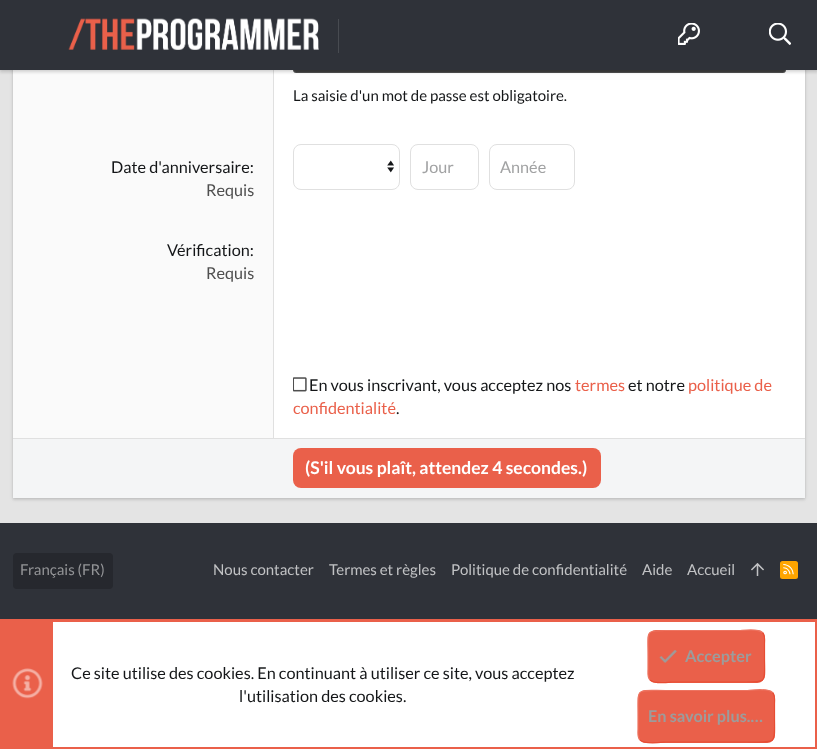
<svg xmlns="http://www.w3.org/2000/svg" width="817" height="749">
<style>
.a{font:15px Lato;fill:#141618}
.b{font:16.25px Lato;fill:#141618}
.c{font:16.25px Lato;fill:#4f4f4f}
.d{font:16.25px Lato;fill:#a1a2a3}
.e{font:16.25px Lato;fill:#ea604a}
.f{font:bold 17.5px Lato;fill:#fff}
.g{font:15px Lato;fill:#939497}
.h{font:15px Lato;fill:#c1c2c4}
.i{font:bold 16.25px Lato;fill:#9c9c9c}
</style>
<rect width="100%" height="100%" fill="#e4e4e4"/>
<path fill="#0000001a" filter="blur(2px)" d="M13 -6h792v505H13z"/>
<path fill="#0000000f" filter="blur(1px)" d="M13 -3h792v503H13z"/>
<path fill="#00000012" filter="blur(1px)" d="M13 -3h792v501H13z"/>
<path fill="#fff" d="M274 70h531v368H274z"/>
<path fill="#fafafa" d="M13 70h260v368H13z"/>
<path fill="#e0e0e0" d="M273 70h1v368H273z"/>
<rect fill="#404040" x="293" y="66" width="493" height="7" rx="3.5"/>
<rect fill="none" stroke="#7676764d" x="293.5" y="66.5" width="492" height="6" rx="3"/>
<path fill="#0000001a" filter="blur(2px)" d="M0 1h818v70H0z"/>
<path fill="#0000000f" filter="blur(1px)" d="M0 3h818v70H0z"/>
<path fill="#00000012" filter="blur(1px)" d="M0 0h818v70H0z"/>
<path fill="#2f3239" d="M0 0h817v70H0z"/>
<path fill="#484b51" d="M338 19h1v34H338z"/>
<image href="1.png" x="68" y="18" width="251" height="32"/>
<image href="2.png" x="678" y="23" width="22" height="22"/>
<image href="3.png" x="769" y="23" width="22" height="22"/>
<image href="4.png" x="387" y="160" width="7" height="13"/>
<rect fill="none" stroke="#e0e0e0" x="293.5" y="144.5" width="106" height="45" rx="7.5"/>
<rect fill="none" stroke="#e0e0e0" x="410.5" y="144.5" width="68" height="45" rx="7.5"/>
<rect fill="none" stroke="#e0e0e0" x="489.5" y="144.5" width="85" height="45" rx="7.5"/>
<image href="5.png" x="293" y="377" width="14" height="15"/>
<path fill="#f4f5f6" d="M13 439h792v59H13z"/>
<path fill="#e0e0e0" d="M13 438h792v1H13z"/>
<rect fill="#ea604a" x="293" y="448" width="308" height="40" rx="8"/>
<path fill="#2f3239" d="M0 523h817v96H0z"/>
<rect fill="#26282e" x="13" y="553" width="100" height="36" rx="4"/>
<image href="6.png" x="751" y="563" width="13" height="13"/>
<rect fill="#ffa500" x="780" y="561" width="18" height="18" rx="2.5"/>
<image href="7.png" x="783" y="564" width="11" height="11"/>
<path fill="#fff" d="M53 622h762v125H53z"/>
<path fill="none" stroke="#ea604a" stroke-width="3" d="M1.5 620.5h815v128H1.5z"/>
<path fill="#ea604a" d="M3 622h50v125H3z"/>
<image href="8.png" x="12" y="668" width="31" height="31"/>
<rect fill="#ea604a" x="648" y="630" width="117" height="53" rx="8"/>
<path fill="none" stroke="#e74c33" stroke-width="1.2" d="M762.5 632.5c3 3 2 7.5 2 11.5v12c0 28 4 26-24 26h-68.5c-1.5 0-17 2.5-22-2"/>
<path fill="none" stroke="#ed7461" stroke-width="1.2" d="M650 680c-3-3-2-7.5-2-11v-13c0-27.5-4-25.5 24-25.5h68.5c1.5 0 17-2.5 22 2"/>
<image href="9.png" x="659" y="650" width="18" height="13"/>
<rect fill="#ea604a" x="638" y="690" width="137" height="53" rx="8"/>
<path fill="none" stroke="#e74c33" stroke-width="1.2" d="M772.5 692.5c3 3 2 7.5 2 11.5v12c0 29.5 3.5 26-27.5 26h-81.5c-2 0-20.5 3-25.5-2"/>
<path fill="none" stroke="#ed7461" stroke-width="1.2" d="M640 740c-3-3-2-7.5-2-11v-13c0-29-3.5-25.5 27.5-25.5h81.5c2 0 20.5-3 25.5 2"/>
<text class="a" x="293" y="101">La saisie d'un mot de passe est obligatoire.</text>
<text class="b" x="111" y="173">Date d'anniversaire:</text>
<text class="c" x="206" y="196">Requis</text>
<text class="d" x="422" y="173">Jour</text>
<text class="d" x="500" y="173">Année</text>
<text class="b" x="167" y="256">Vérification:</text>
<text class="c" x="206" y="279">Requis</text>
<text class="b" x="309" y="391">En vous inscrivant, vous acceptez nos</text>
<text class="e" x="575" y="391">termes</text>
<text class="b" x="628" y="391">et notre</text>
<text class="e" x="688" y="391">politique de</text>
<text class="e" x="293" y="414">confidentialité</text>
<text class="b" x="396" y="414">.</text>
<text class="f" x="305" y="474">(S'il vous plaît, attendez 4 secondes.)</text>
<text class="g" x="20" y="575">Français (FR)</text>
<text class="h" x="213" y="575">Nous contacter</text>
<text class="h" x="329" y="575">Termes et règles</text>
<text class="h" x="451" y="575">Politique de confidentialité</text>
<text class="h" x="642" y="575">Aide</text>
<text class="h" x="687" y="575">Accueil</text>
<text class="b" x="71" y="679">Ce site utilise des cookies. En continuant à utiliser ce site, vous acceptez</text>
<text class="b" x="239" y="702">l'utilisation des cookies.</text>
<text class="i" x="685" y="662">Accepter</text>
<text class="i" x="648" y="722">En savoir plus.…</text>
</svg>
